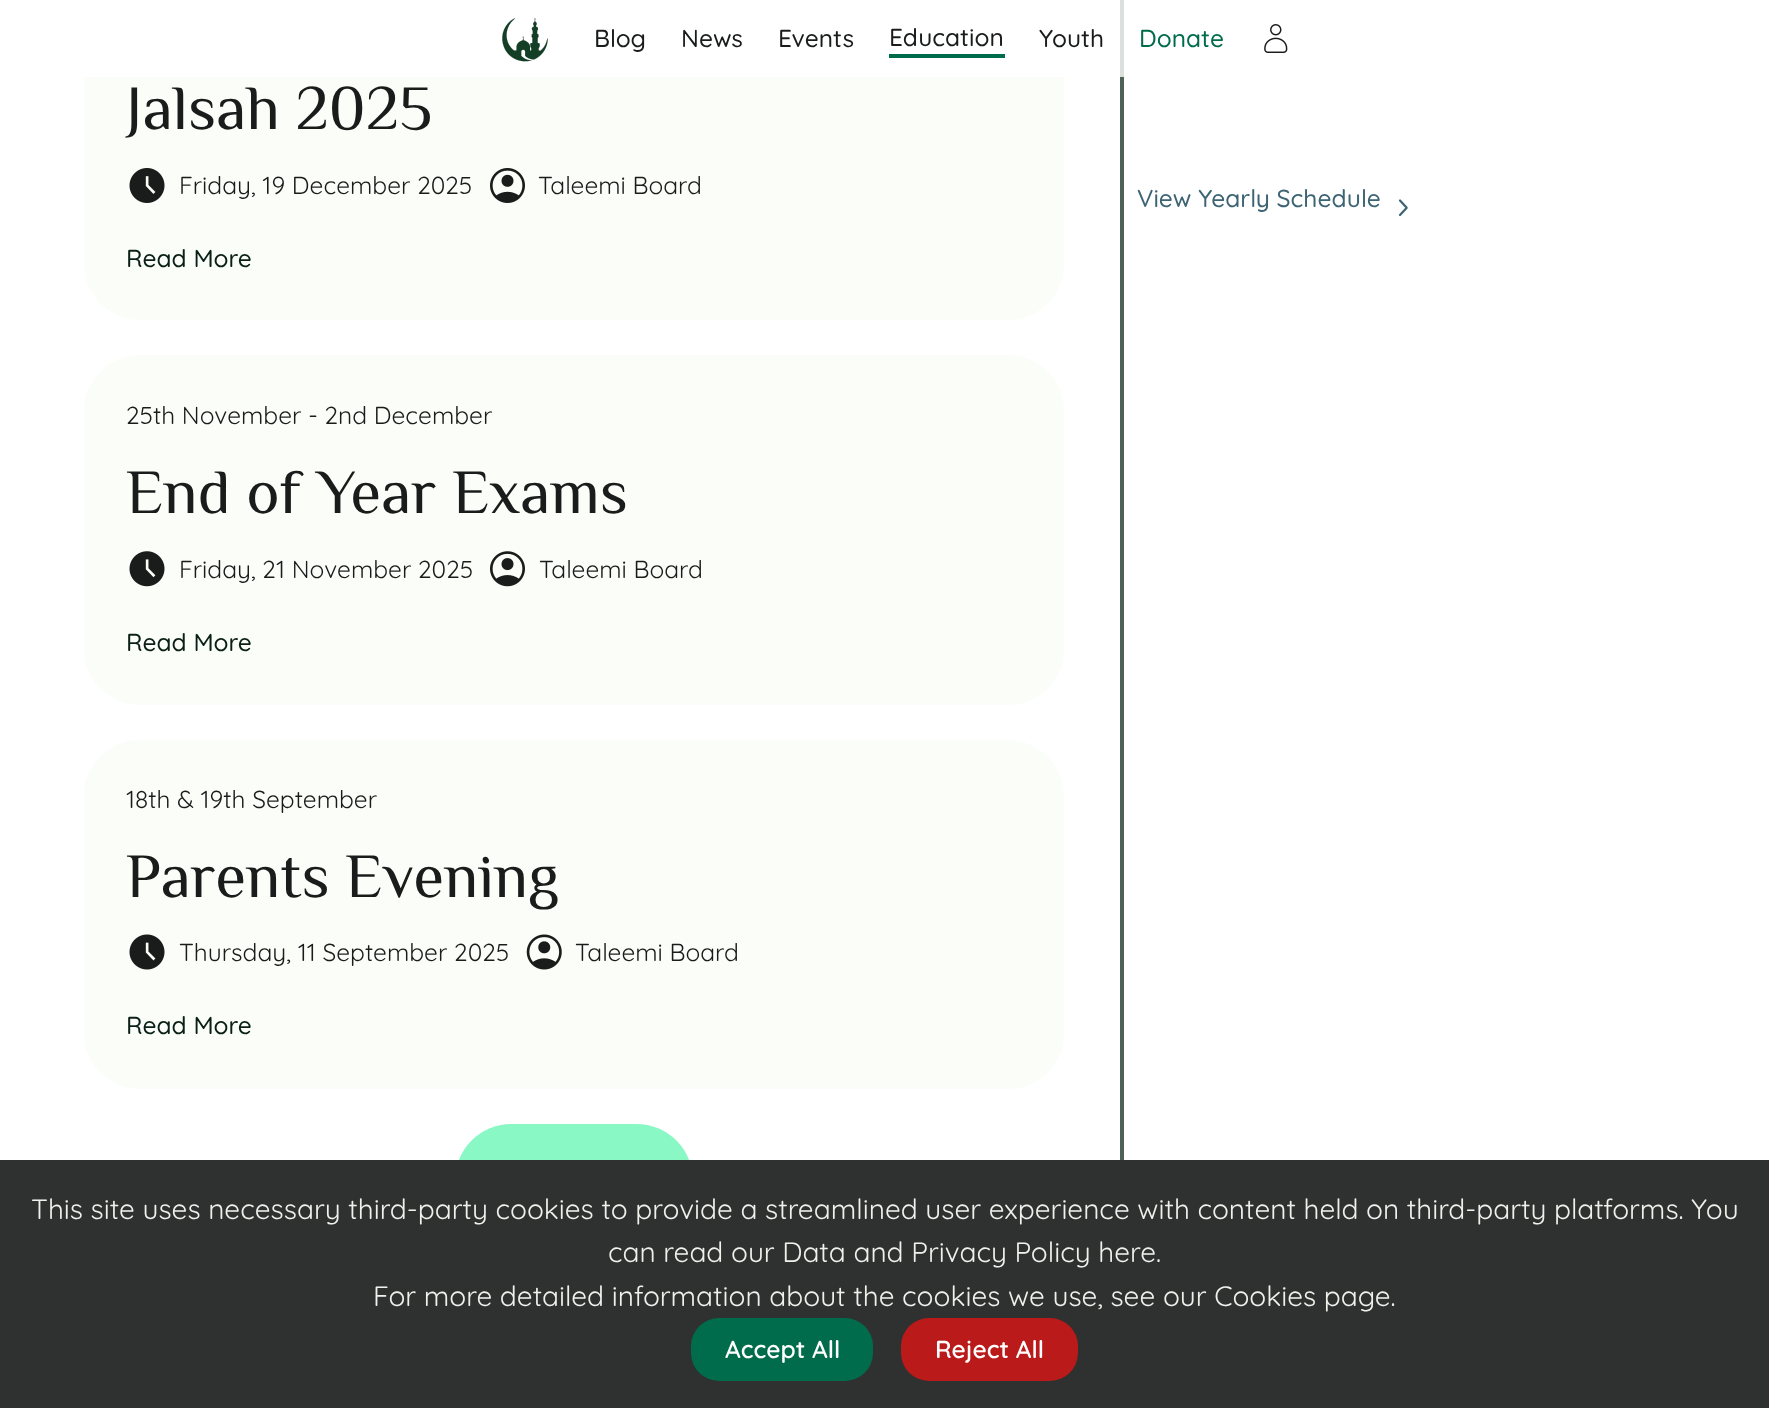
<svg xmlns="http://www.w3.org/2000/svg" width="1769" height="1408">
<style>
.a{font:500 24.5px Quicksand;fill:#191c1a}
.b{font:500 24.5px Quicksand;fill:#006c4b}
.c{font:63px El Messiri;fill:#191c1a}
.d{font:24.5px Quicksand;fill:#191c1a}
.e{font:500 24.5px Quicksand;fill:#0a1f16}
.f{font:500 24.5px Quicksand;fill:#3d6473}
.g{font:28px Quicksand;fill:#eff1ed}
.h{font:600 24.5px Quicksand;fill:#fff}
</style>
<rect width="100%" height="100%" fill="#fff"/>
<rect fill="#fbfdf9" x="84" y="25" width="980" height="295" rx="56"/>
<path fill="#4d6357" d="M1120 0h4v1160H1120z"/>
<path fill="#ffffffcc" d="M84 0h1040v77H84z"/>
<image href="1.png" x="502" y="18" width="46" height="44"/>
<path fill="#006c4b" d="M889 54h116v4H889z"/>
<image href="2.png" x="1264" y="24" width="24" height="29"/>
<image href="3.png" x="129" y="168" width="36" height="35"/>
<image href="4.png" x="490" y="168" width="35" height="35"/>
<rect fill="#fbfdf9" x="84" y="355" width="980" height="350" rx="56"/>
<image href="5.png" x="129" y="551" width="36" height="36"/>
<image href="6.png" x="490" y="551" width="35" height="36"/>
<rect fill="#fbfdf9" x="84" y="740" width="980" height="349" rx="56"/>
<image href="7.png" x="129" y="934" width="36" height="36"/>
<image href="8.png" x="526" y="934" width="36" height="36"/>
<rect fill="#8af8c5" x="455" y="1124" width="238" height="113" rx="56.5"/>
<path fill="none" stroke="#3d6473" stroke-width="2.2" stroke-linecap="round" d="M1400 200.5l6.5 7v.5l-6.5 7"/>
<path fill="#2e312f" d="M0 1160h1769v248H0z"/>
<rect fill="#006c4b" x="691" y="1318" width="182" height="63" rx="28"/>
<rect fill="#ba1a1a" x="901" y="1318" width="177" height="63" rx="28"/>
<text class="a" x="594" y="47">Blog</text>
<text class="a" x="681" y="47">News</text>
<text class="a" x="778" y="47">Events</text>
<text class="a" x="889" y="46">Education</text>
<text class="a" x="1039" y="47">Youth</text>
<text class="b" x="1139" y="47">Donate</text>
<text class="c" x="126" y="129">Jalsah 2025</text>
<text class="d" x="179" y="194">Friday, 19 December 2025</text>
<text class="d" x="538" y="194">Taleemi Board</text>
<text class="e" x="126" y="267">Read More</text>
<text class="d" x="126" y="424">25th November - 2nd December</text>
<text class="c" x="126" y="513">End of Year Exams</text>
<text class="d" x="179" y="578">Friday, 21 November 2025</text>
<text class="d" x="539" y="578">Taleemi Board</text>
<text class="e" x="126" y="651">Read More</text>
<text class="d" x="126" y="808">18th &amp; 19th September</text>
<text class="c" x="126" y="897">Parents Evening</text>
<text class="d" x="179" y="961">Thursday, 11 September 2025</text>
<text class="d" x="575" y="961">Taleemi Board</text>
<text class="e" x="126" y="1034">Read More</text>
<text class="f" x="1137" y="207">View Yearly Schedule</text>
<text class="g" x="31" y="1219">This site uses necessary third-party cookies to provide a streamlined user experience with content held on third-party platforms. You</text>
<text class="g" x="608" y="1262">can read our Data and Privacy Policy here.</text>
<text class="g" x="373" y="1306">For more detailed information about the cookies we use, see our Cookies page.</text>
<text class="h" x="725" y="1358">Accept All</text>
<text class="h" x="935" y="1358">Reject All</text>
</svg>
